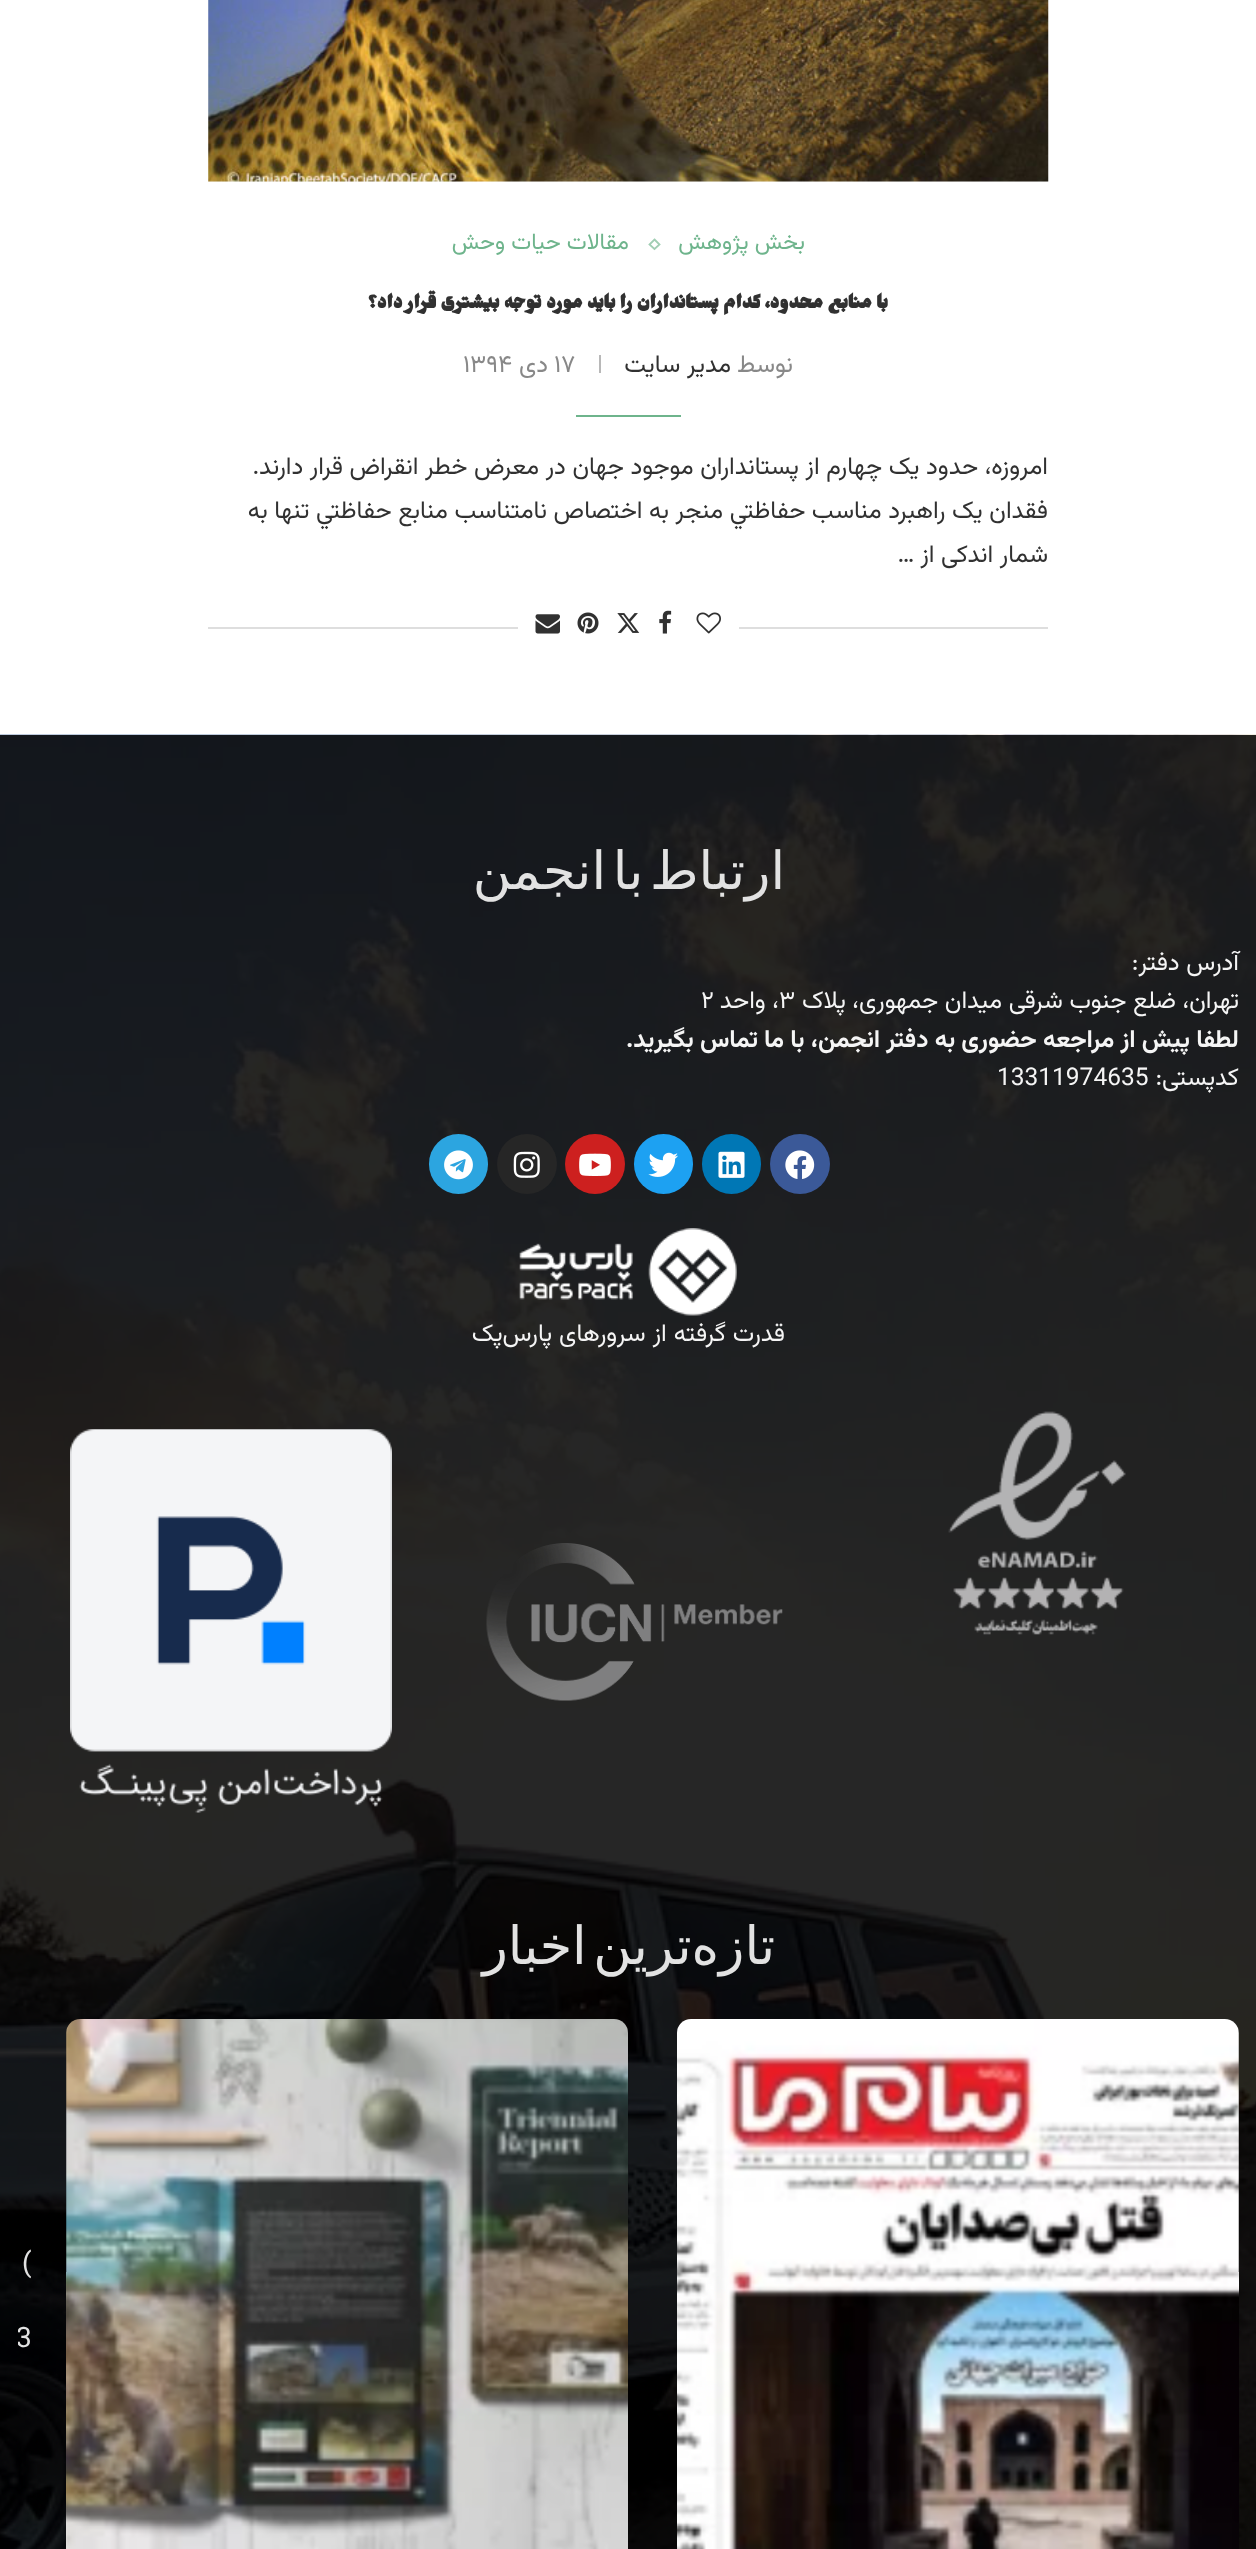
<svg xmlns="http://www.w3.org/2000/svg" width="1256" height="2549">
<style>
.a{font:22.75px Vazirmatn;direction:rtl;fill:#6eb48c}
.b{font:bold 31.5px Jomhuria;direction:rtl;fill:#313131}
.c{font:24.5px Vazirmatn;direction:rtl;fill:#888}
.d{font:24.5px Vazirmatn;direction:rtl;fill:#313131}
.e{font:24.5px Vazirmatn;fill:#888}
.f{font:52.5px DejaVu Sans;direction:rtl;fill:#e2e2e2}
.g{font:24.5px Vazirmatn;direction:rtl;fill:#f5f5f5}
.h{font:24.5px Vazirmatn;fill:#f5f5f5}
.i{font:bold 24.5px Vazirmatn;direction:rtl;fill:#f5f5f5}
.j{font:28px Vazirmatn;fill:#e2e2e2}
</style>
<defs>
<clipPath id="clip1"><path d="M18 2020h610v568H18z"/></clipPath>
</defs>
<rect width="100%" height="100%" fill="#fff"/>
<path fill="#f5f5f5" d="M208 0h840v182H208z"/>
<image href="1.png" x="208" y="0" width="841" height="182"/>
<path fill="none" stroke="#a1ceb4" stroke-width="1.8" d="M654.5 239.5l5 5l-5 4.5l-5-4.5z"/>
<path fill="#b8b8b8" d="M599 355h2v18H599z"/>
<path fill="#6eb48c" d="M576 415h105v2H576z"/>
<path fill="#dedede" d="M208 627h840v2H208z"/>
<path fill="#fff" d="M518 627h221v2H518z"/>
<image href="2.png" x="696" y="612" width="25" height="22"/>
<image href="3.png" x="659" y="610" width="13" height="24"/>
<image href="4.png" x="617" y="613" width="23" height="20"/>
<image href="5.png" x="577" y="612" width="22" height="22"/>
<image href="6.png" x="535" y="614" width="25" height="20"/>
<image href="7.png" x="0" y="734" width="1256" height="1815"/>
<circle fill="#3b5998" cx="800" cy="1164" r="30"/>
<image href="8.png" x="785" y="1150" width="30" height="29"/>
<rect fill="#0077b5" x="702" y="1134" width="59" height="60" rx="29.5"/>
<image href="9.png" x="718" y="1151" width="27" height="27"/>
<rect fill="#1da1f2" x="634" y="1134" width="59" height="60" rx="29.5"/>
<image href="10.png" x="648" y="1152" width="30" height="25"/>
<circle fill="#cd201f" cx="595" cy="1164" r="30"/>
<image href="11.png" x="579" y="1153" width="32" height="23"/>
<circle fill="#262626" cx="527" cy="1164" r="30"/>
<image href="12.png" x="513" y="1151" width="27" height="27"/>
<rect fill="#2ca5e0" x="429" y="1134" width="59" height="60" rx="29.5"/>
<image href="13.png" x="444" y="1150" width="29" height="30"/>
<image href="14.png" x="519" y="1228" width="218" height="88"/>
<image href="15.png" x="948" y="1411" width="178" height="224"/>
<image href="16.png" x="486" y="1543" width="297" height="158"/>
<image href="17.png" x="70" y="1429" width="322" height="384"/>
<image href="18.png" x="677" y="2019" width="562" height="530"/>
<image href="19.png" x="66" y="2019" width="562" height="530"/>
<text class="a" x="805" y="249">بخش پژوهش</text>
<text class="a" x="629" y="249">مقالات حیات وحش</text>
<text class="b" x="888" y="308">با منابع محدود، کدام پستانداران را باید مورد توجه بیشتری قرار داد؟</text>
<text class="c" x="793" y="372">نوسط</text>
<text class="d" x="731" y="372">مدیر سایت</text>
<text class="e" x="554" y="372">۱۷</text>
<text class="c" x="548" y="372">دی</text>
<text class="e" x="463" y="372">۱۳۹۴</text>
<text class="d" x="1048" y="474">امروزه، حدود يک چهارم از پستانداران موجود جهان در معرض خطر انقراض قرار دارند.</text>
<text class="d" x="1048" y="518">فقدان يک راهبرد مناسب حفاظتي منجر به اختصاص نامتناسب منابع حفاظتي تنها به</text>
<text class="d" x="1048" y="562">شمار اندکی از …</text>
<text class="f" x="785" y="889" word-spacing="-10">ارتباط با انجمن</text>
<text class="g" x="1239" y="970">آدرس دفتر:</text>
<text class="g" x="1239" y="1008">تهران، ضلع جنوب شرقی میدان جمهوری، پلاک</text>
<text class="h" x="779" y="1008">۳</text>
<text class="g" x="779" y="1008">، واحد</text>
<text class="h" x="701" y="1008">۲</text>
<text class="i" x="1239" y="1047">لطفا پیش از مراجعه حضوری به دفتر انجمن، با ما تماس بگیرید.</text>
<text class="g" x="1239" y="1085">کدپستی:</text>
<text class="h" x="997" y="1085">13311974635</text>
<text class="g" x="785" y="1341" word-spacing="0.5">قدرت گرفته از سرور‌های پارس‌پک</text>
<text class="f" x="775" y="1964" word-spacing="-10">تازه‌ترین اخبار</text>
<text class="j" x="22" y="2272">(</text>
<g clip-path="url(#clip1)">
<text class="j" x="16" y="2347">3</text>
</g>
</svg>
